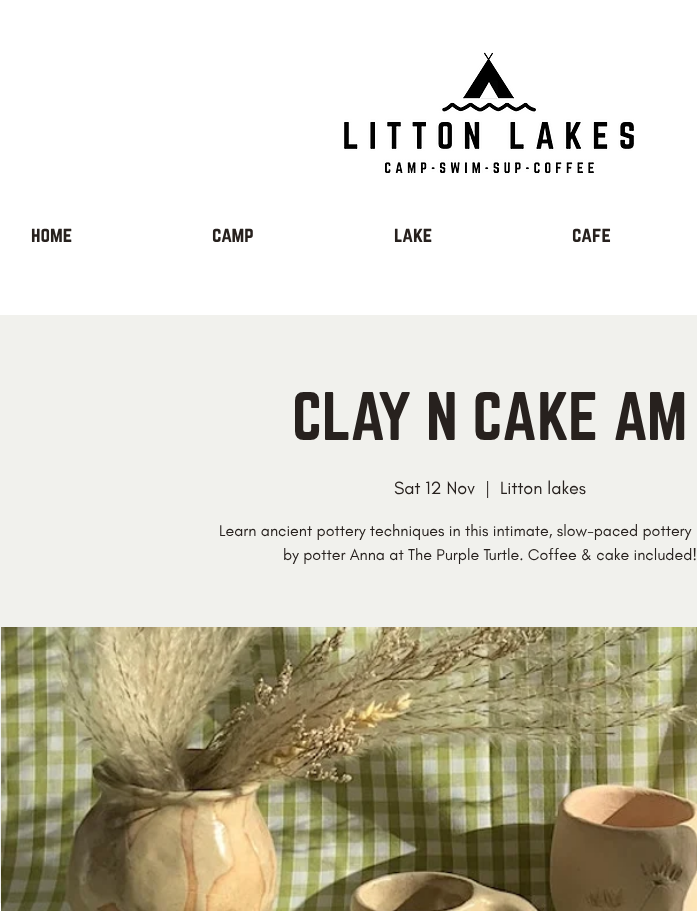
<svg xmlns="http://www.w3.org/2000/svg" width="697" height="911">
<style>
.a{font:19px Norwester;fill:#27211e}
.b{font:60px Norwester;fill:#27211e}
.c{font:18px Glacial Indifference;fill:#27211e}
.d{font:16px Glacial Indifference;fill:#27211e}
</style>
<rect width="100%" height="100%" fill="#fff"/>
<image href="1.png" x="344" y="52" width="290" height="121"/>
<path fill="#f1f1ed" d="M0 315h697v588H0z"/>
<image href="2.png" x="1" y="627" width="696" height="284"/>
<text class="a" x="31" y="242">home</text>
<text class="a" x="212" y="242">camp</text>
<text class="a" x="394" y="242">lake</text>
<text class="a" x="572" y="242">cafe</text>
<text class="b" x="292" y="440">CLAY N CAKE AM</text>
<text class="c" x="394" y="494">Sat 12 Nov</text>
<text class="c" x="485" y="494">|</text>
<text class="c" x="500" y="494">Litton lakes</text>
<text class="d" x="219" y="536">Learn ancient pottery techniques in this intimate, slow-paced pottery</text>
<text class="d" x="283" y="560">by potter Anna at The Purple Turtle. Coffee &amp; cake included!</text>
</svg>
